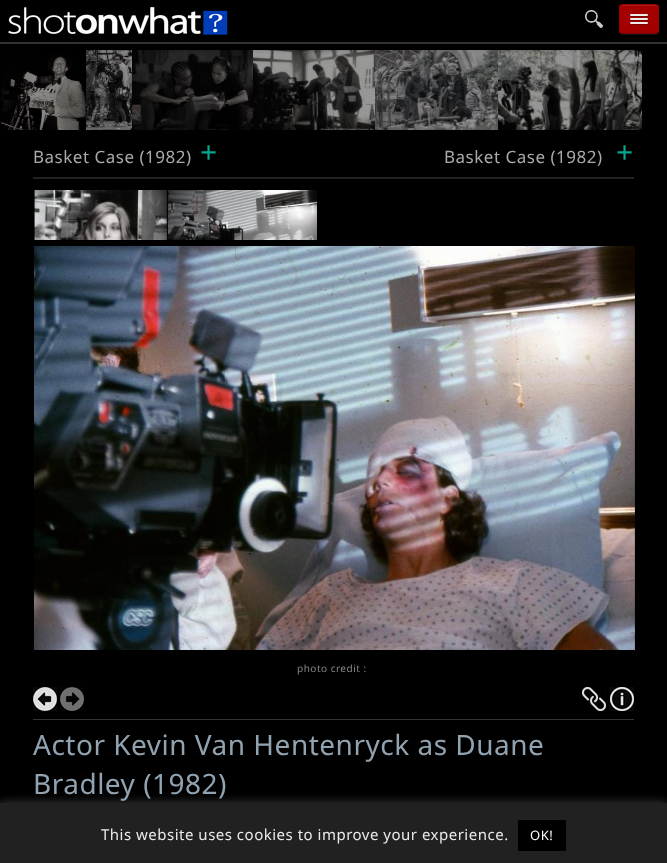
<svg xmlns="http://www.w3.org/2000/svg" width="667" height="863">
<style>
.a{font:17px Noto Sans;letter-spacing:0.5px;fill:#aaa}
.b{font:30px Noto Sans;letter-spacing:0.5px;fill:#02a78e}
.c{font:10px Noto Sans;letter-spacing:0.5px;fill:#888}
.d{font:28px Noto Sans;letter-spacing:0.5px;fill:#91a3b0}
.e{font:15px Noto Sans;letter-spacing:0.5px;fill:#eaeaea}
.f{font:13px Noto Sans;letter-spacing:0.5px;fill:#fff}
</style>
<defs>
<clipPath id="clip1"><path d="M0 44h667v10H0z"/></clipPath>
<clipPath id="clip2"><rect x="619" y="4" width="40" height="30" rx="4"/></clipPath>
<linearGradient id="g1" gradientUnits="userSpaceOnUse" x1="639" y1="5" x2="639" y2="33"><stop offset="0" stop-color="#a50000"/><stop offset="1" stop-color="#a20000"/></linearGradient>
</defs>
<rect width="100%" height="100%" fill="#000"/>
<image href="3.png" x="0" y="54" width="86" height="76"/>
<image href="4.png" x="86" y="50" width="46" height="80"/>
<image href="5.png" x="132" y="50" width="121" height="80"/>
<image href="6.png" x="253" y="50" width="122" height="80"/>
<image href="7.png" x="375" y="50" width="123" height="80"/>
<image href="8.png" x="498" y="50" width="144" height="80"/>
<g clip-path="url(#clip1)">
<path fill="#000000e6" filter="blur(5px)" d="M4 0h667v44H4z"/>
</g>
<path fill="#333" d="M0 42h667v2H0z"/>
<image href="1.png" x="8" y="7" width="220" height="28"/>
<image href="2.png" x="585" y="10" width="18" height="18"/>
<path fill="#131313" d="M619 30c0 6 5 5 9 5h22c4 0 9 1 9-5c0 2-2 4-4 4h-32c-2 0-4-2-4-4z"/>
<rect fill="#a50000" x="619" y="4" width="40" height="30" rx="4"/>
<g clip-path="url(#clip2)">
<path fill="url(#g1)" d="M619 5h40v28H619z"/>
</g>
<path fill="#ae1919" d="M623 6h32c2 0 3 1 3 3c0-5-4-4-8.5-4h-21c-4.5 0-8.5-1-8.5 4c0-2 1-3 3-3z"/>
<path fill="none" stroke="#00000040" d="M657.5 32.5c-.5 .5-1.5 1-2.5 1h-32c-1 0-2-.5-2.5-1"/>
<path fill="none" stroke="#0000001a" d="M620.5 32.5c-.5-.5-1-1.5-1-2.5v-22c0-1 .5-2 1-2.5c.5-.5 1.5-1 2.5-1h32c1 0 2 .5 2.5 1c.5 .5 1 1.5 1 2.5v22c0 1-.5 2-1 2.5"/>
<path fill="#7b0000" d="M630 15.5c-1 2 3.5 1.5 3.5 1.5h11c0 0 4.5 .5 3.5-1.5c-1 1-7.5 .5-9 .5c-1.5 0-8 .5-9-.5z"/>
<rect fill="#ececec" x="630" y="14" width="18" height="2" rx="1"/>
<path fill="#7a0000" d="M630 19.5c-1 2 3.5 1.5 3.5 1.5h11c0 0 4.5 .5 3.5-1.5c-1 1-7.5 .5-9 .5c-1.5 0-8 .5-9-.5z"/>
<rect fill="#ececec" x="630" y="18" width="18" height="2" rx="1"/>
<path fill="#7a0000" d="M630 23.5c-1 2 3.5 1.5 3.5 1.5h11c0 0 4.5 .5 3.5-1.5c-1 1-7.5 .5-9 .5c-1.5 0-8 .5-9-.5z"/>
<rect fill="#ececec" x="630" y="22" width="18" height="2" rx="1"/>
<path fill="#222" d="M33 177h601v2H33z"/>
<image href="9.png" x="34" y="190" width="134" height="50"/>
<image href="10.png" x="168" y="190" width="149" height="50"/>
<image href="11.png" x="34" y="246" width="601" height="404"/>
<path fill="#333" d="M33 719h601v1H33z"/>
<image href="12.png" x="33" y="687" width="24" height="24"/>
<image href="13.png" x="60" y="687" width="24" height="24"/>
<image href="14.png" x="582" y="687" width="24" height="24"/>
<image href="15.png" x="610" y="687" width="24" height="24"/>
<path fill="#acabab4d" filter="blur(5px)" d="M0 802h667v60H0z"/>
<path fill="#212121" d="M0 803h667v60H0z"/>
<path fill="#000" d="M518 820h48v31H518z"/>
<text class="a" x="33" y="163">Basket Case (1982)</text>
<text class="b" x="200" y="163">+</text>
<text class="a" x="444" y="163">Basket Case (1982)</text>
<text class="b" x="616" y="163">+</text>
<text class="c" x="297" y="672">photo credit :</text>
<text class="d" x="33" y="755">Actor Kevin Van Hentenryck as Duane</text>
<text class="d" x="33" y="794">Bradley (1982)</text>
<text class="e" x="101" y="840">This website uses cookies to improve your experience.</text>
<text class="f" x="530" y="840">OK!</text>
</svg>
